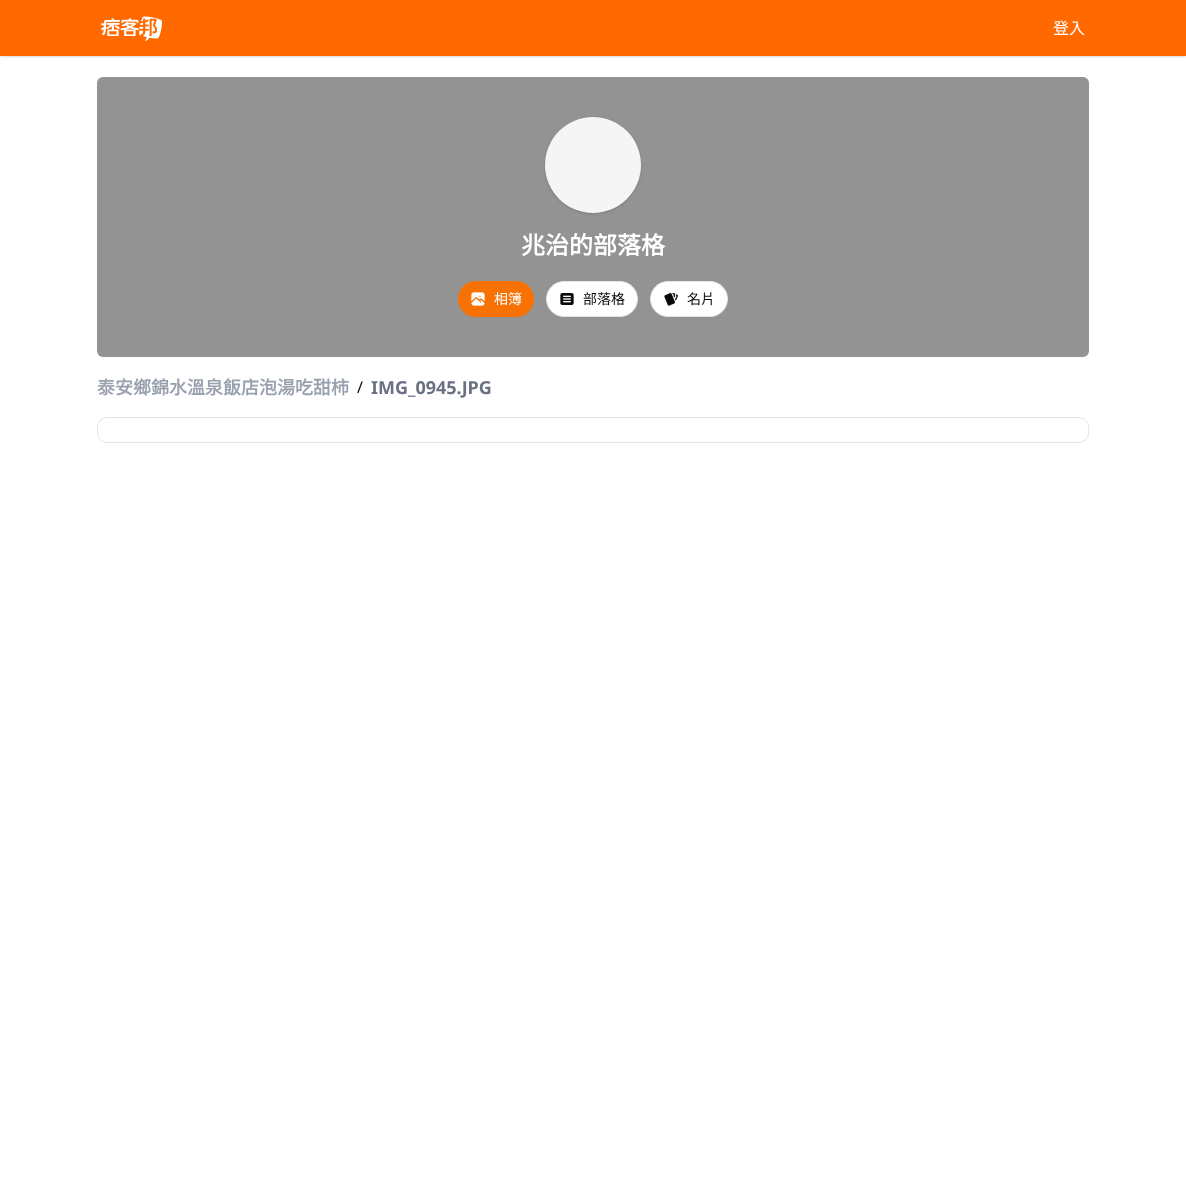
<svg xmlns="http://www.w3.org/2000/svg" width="1186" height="1191">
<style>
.a{font:16px Noto Sans CJK TC;fill:#fff}
.b{font:bold 24px Noto Sans CJK TC;fill:#fff}
.c{font:14px Noto Sans CJK TC;fill:#fff}
.d{font:14px Noto Sans CJK TC;fill:#0a0a0a}
.e{font:bold 18px Noto Sans CJK TC;fill:#99a1af}
.f{font:16px Noto Sans;fill:#0a0a0a}
.g{font:bold 18px Noto Sans;fill:#6a7282}
</style>
<rect width="100%" height="100%" fill="#fff"/>
<path fill="#0000001a" filter="blur(1px)" d="M1 2h1184v54H1z"/>
<path fill="#0000001a" filter="blur(1.5px)" d="M0 1h1186v56H0z"/>
<path fill="#ff6900" d="M0 0h1186v56H0z"/>
<image href="1.png" x="101" y="16" width="61" height="25"/>
<rect fill="#939393" x="97" y="77" width="992" height="280" rx="6"/>
<rect fill="#0000001a" filter="blur(1px)" x="546" y="119" width="94" height="94" rx="47"/>
<rect fill="#0000001a" filter="blur(1.5px)" x="545" y="118" width="96" height="96" rx="48"/>
<circle fill="#f5f5f5" cx="593" cy="165" r="48"/>
<rect fill="#f87103" x="458" y="281" width="76" height="36" rx="18"/>
<image href="2.png" x="471" y="292" width="14" height="14"/>
<rect fill="#fff" stroke="#e5e5e5" x="546.5" y="281.5" width="91" height="35" rx="17.5"/>
<image href="3.png" x="560" y="293" width="14" height="12"/>
<rect fill="#fff" stroke="#e5e5e5" x="650.5" y="281.5" width="77" height="35" rx="17.5"/>
<image href="4.png" x="664" y="293" width="14" height="13"/>
<rect fill="none" stroke="#e5e5e5" x="97.5" y="417.5" width="991" height="25" rx="9.5"/>
<text class="a" x="1053" y="34">登入</text>
<text class="b" x="521" y="254">兆治的部落格</text>
<text class="c" x="494" y="304">相簿</text>
<text class="d" x="583" y="304">部落格</text>
<text class="d" x="687" y="304">名片</text>
<text class="e" x="97" y="394">泰安鄉錦水溫泉飯店泡湯吃甜柿</text>
<text class="f" x="357" y="393">/</text>
<text class="g" x="371" y="394">IMG_0945.JPG</text>
</svg>
